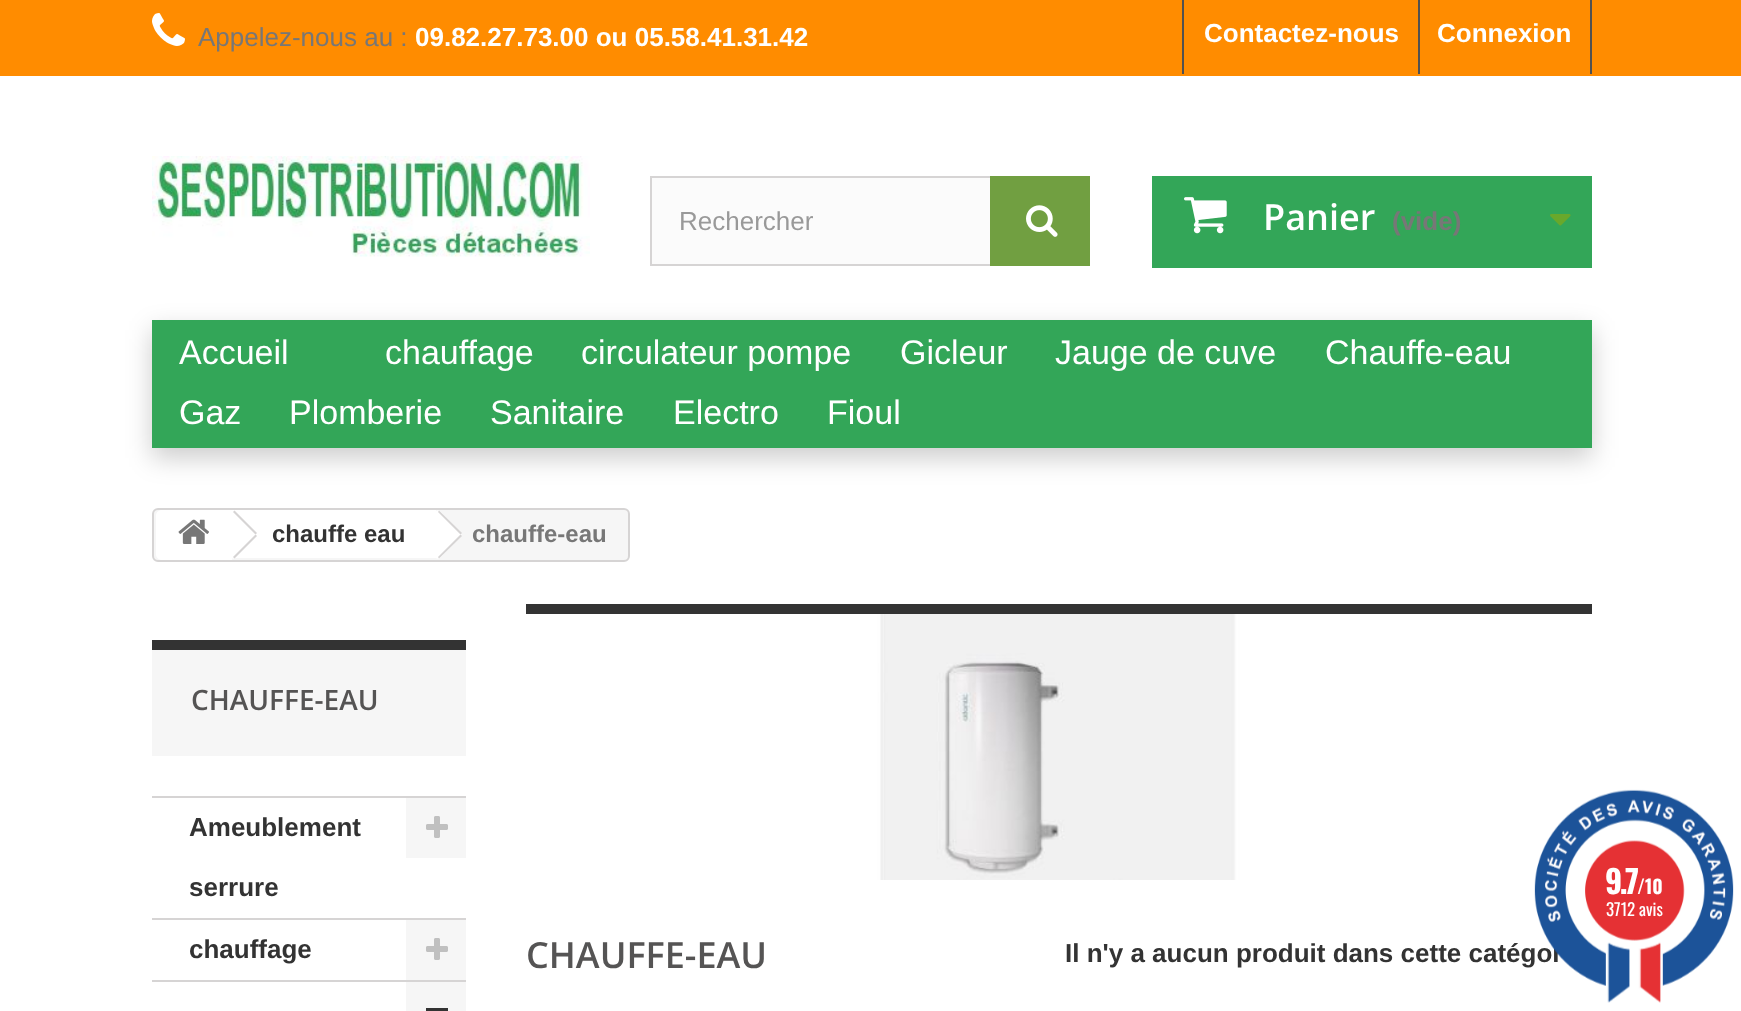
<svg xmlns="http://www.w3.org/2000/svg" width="1741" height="1011">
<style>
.a{font:26px Liberation Sans;fill:#777}
.b{font:bold 26px Liberation Sans;fill:#fff}
.c{font:26px Liberation Sans;fill:#999}
.d{font:600 36px Open Sans;fill:#fff}
.e{font:bold 26px Liberation Sans;fill:#777}
.f{font:34px Liberation Sans;fill:#fff}
.g{font:bold 24px Liberation Sans;fill:#333}
.h{font:bold 24px Liberation Sans;fill:#777}
.i{font:600 28px Open Sans;fill:#555454}
.j{font:bold 26px Liberation Sans;fill:#333}
.k{font:600 36px Open Sans;fill:#555454}
.l{font:bold 32px Oswald;letter-spacing:-2.5px;fill:#fff}
.m{font:bold 19px Oswald;fill:#fff}
.n{font:17px Oswald;fill:#fff}
</style>
<rect width="100%" height="100%" fill="#fff"/>
<path fill="#ff8c00" d="M0 0h1741v76H0z"/>
<image href="1.png" x="152" y="13" width="33" height="33"/>
<path fill="#515151" d="M1182 0h2v74H1182z"/>
<path fill="#515151" d="M1590 0h2v74H1590z"/>
<path fill="#515151" d="M1418 0h2v74H1418z"/>
<image href="2.png" x="152" y="156" width="438" height="101"/>
<path fill="#fbfbfb" d="M652 178h338v86H652z"/>
<path fill="none" stroke="#d6d4d4" stroke-width="2" d="M651 177h438v88H651z"/>
<path fill="#719f41" d="M990 176h100v90H990z"/>
<image href="3.png" x="1026" y="205" width="32" height="32"/>
<path fill="#33a658" d="M1152 176h440v92H1152z"/>
<image href="4.png" x="1184" y="197" width="43" height="37"/>
<image href="5.png" x="1550" y="214" width="21" height="12"/>
<path fill="#00000033" filter="blur(13px)" d="M152 330h1440v128H152z"/>
<path fill="#33a658" d="M152 320h1440v128H152z"/>
<rect fill="#f6f6f6" stroke="#d6d4d4" stroke-width="2" x="153" y="509" width="476" height="52" rx="5"/>
<path fill="#fff" d="M162 510h70v50h-70c-3.5 0-6-2.5-6-6v-38c0-3.5 2.5-6 6-6z"/>
<image href="6.png" x="178" y="519" width="31" height="25"/>
<path fill="#fff" d="M232 510h204v48H232z"/>
<path fill="#fff" d="M236 512l20 20c1 1 1 4 0 5l-20 20c-2 2-4 2-6 0l-20-20c-1-1-1-4 0-5l20-20c2-2 4-2 6 0z"/>
<path fill="#d6d4d4" d="M234.5 510.5l22.5 22.5l-1.5 1.5l-22.5-22.5z"/>
<path fill="#d6d4d4" d="M255.5 534.5l1.5 1.5l-22.5 22.5l-1.5-1.5z"/>
<path fill="#fff" d="M441 512l19 20c2 1 2 4 0 5l-19 20c-2 2-5 2-6 0l-20-20c-1-1-1-4 0-5l20-20c1-2 4-2 6 0z"/>
<path fill="#d6d4d4" d="M439 510.5l23 22.5l-1.5 1.5l-22.5-22.5z"/>
<path fill="#d6d4d4" d="M460.5 534.5l1.5 1.5l-23 22.5l-1-1.5z"/>
<path fill="#f6f6f6" d="M152 650h314v106H152z"/>
<path fill="#333" d="M152 640h314v10H152z"/>
<path fill="#d6d4d4" d="M152 796h314v2H152z"/>
<path fill="#d6d4d4" d="M152 918h314v2H152z"/>
<path fill="#f6f6f6" d="M406 798h60v60H406z"/>
<image href="7.png" x="426" y="816" width="22" height="22"/>
<path fill="#d6d4d4" d="M152 980h314v2H152z"/>
<path fill="#f6f6f6" d="M406 920h60v60H406z"/>
<image href="7.png" x="426" y="938" width="22" height="22"/>
<path fill="#f6f6f6" d="M406 982h60v29H406z"/>
<path fill="#333" d="M426 1008h22v3H426z"/>
<path fill="#333" d="M526 604h1066v10H526z"/>
<image href="8.png" x="526" y="614" width="1066" height="266"/>
<text class="a" x="198" y="46">Appelez-nous au :</text>
<text class="b" x="415" y="46">09.82.27.73.00 ou 05.58.41.31.42</text>
<text class="b" x="1204" y="42">Contactez-nous</text>
<text class="b" x="1437" y="42">Connexion</text>
<text class="c" x="679" y="230">Rechercher</text>
<text class="d" x="1263" y="230">Panier</text>
<text class="e" x="1392" y="230">(vide)</text>
<text class="f" x="179" y="364">Accueil</text>
<text class="f" x="385" y="364">chauffage</text>
<text class="f" x="581" y="364">circulateur pompe</text>
<text class="f" x="900" y="364">Gicleur</text>
<text class="f" x="1055" y="364">Jauge de cuve</text>
<text class="f" x="1325" y="364">Chauffe-eau</text>
<text class="f" x="179" y="424">Gaz</text>
<text class="f" x="289" y="424">Plomberie</text>
<text class="f" x="490" y="424">Sanitaire</text>
<text class="f" x="673" y="424">Electro</text>
<text class="f" x="827" y="424">Fioul</text>
<text class="g" x="272" y="542">chauffe eau</text>
<text class="h" x="472" y="542">chauffe-eau</text>
<text class="i" x="191" y="710">CHAUFFE-EAU</text>
<text class="j" x="189" y="836">Ameublement</text>
<text class="j" x="189" y="896">serrure</text>
<text class="j" x="189" y="958">chauffage</text>
<text class="k" x="526" y="968">CHAUFFE-EAU</text>
<text class="j" x="1065" y="962">Il n'y a aucun produit dans cette catégor</text>
<image href="9.png" x="1534" y="789" width="200" height="214"/>
<text class="l" x="1605" y="894">9.7</text>
<text class="m" x="1637" y="894">/10</text>
<text class="n" x="1606" y="916">3712 avis</text>
</svg>
